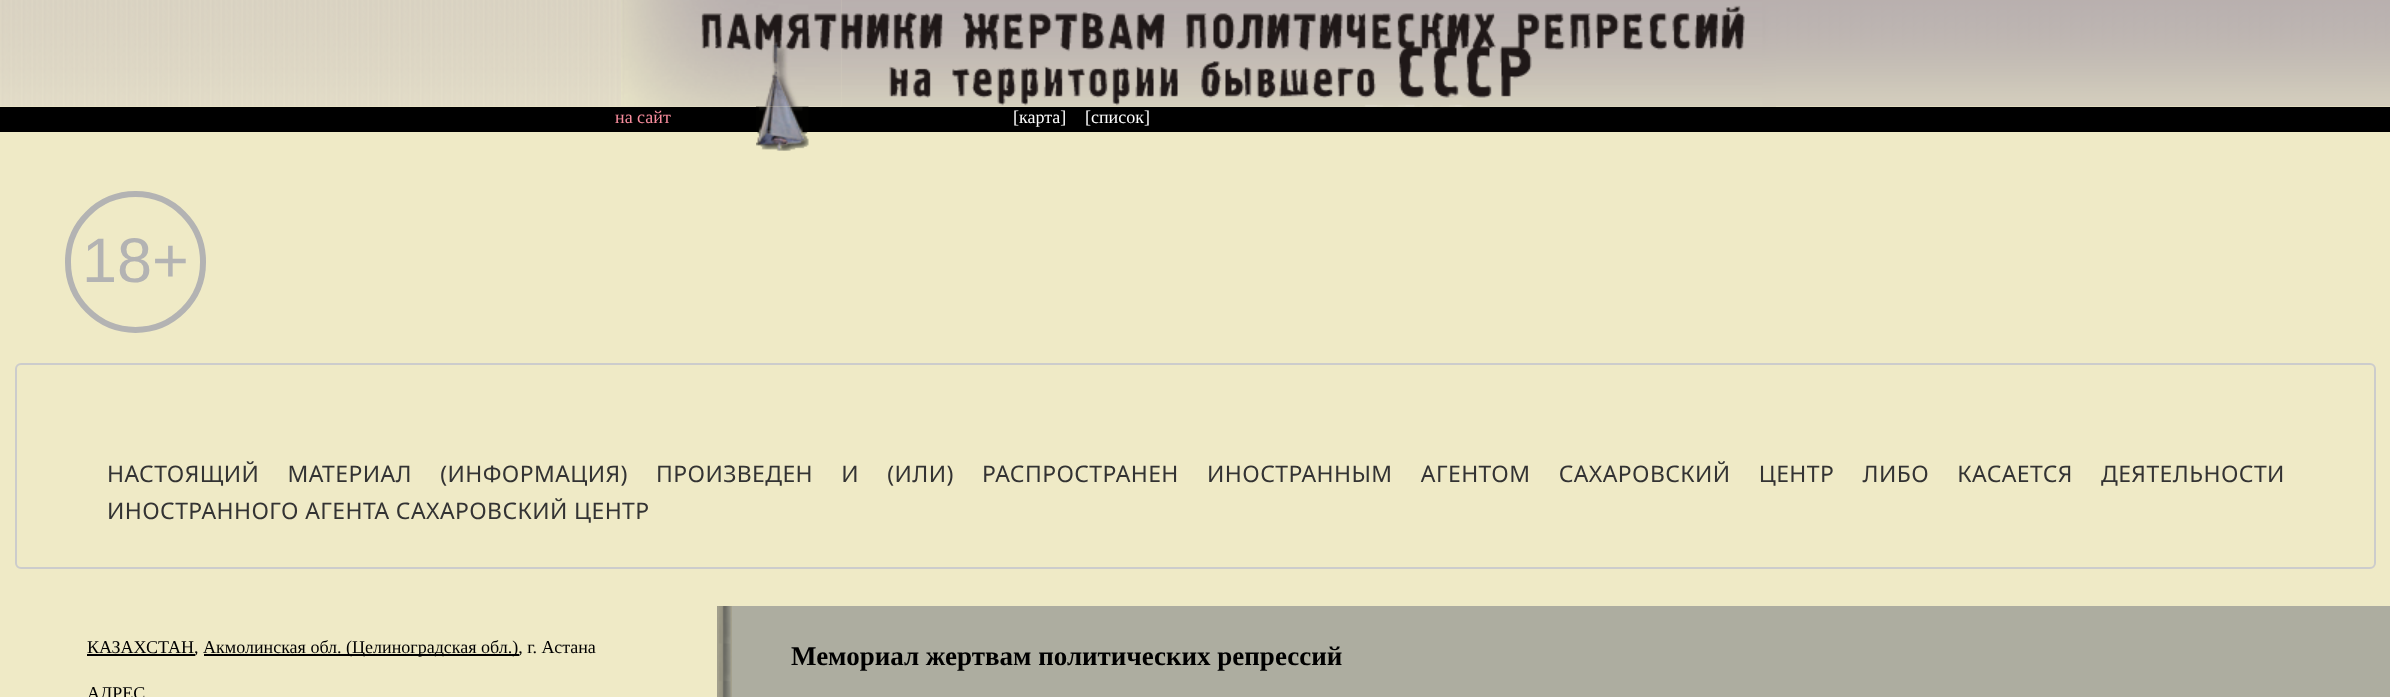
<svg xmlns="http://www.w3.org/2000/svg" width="2390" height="697">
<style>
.a{font:18px Liberation Serif;fill:#f88d9d}
.b{font:18px Liberation Serif;fill:#fff}
.c{font:63px Liberation Sans;fill:#b3b3b3}
.d{font:22.95px Noto Sans;letter-spacing:0.41px;fill:#333}
.e{font:18px Liberation Serif;fill:#000}
.f{font:bold 27px Liberation Serif;fill:#000}
</style>
<rect width="100%" height="100%" fill="#efeac6"/>
<image href="1.png" x="0" y="0" width="615" height="107"/>
<image href="2.png" x="615" y="0" width="227" height="107"/>
<image href="4.png" x="841" y="0" width="935" height="107"/>
<path fill="#000" d="M0 107h2390v25H0z"/>
<image href="7.png" x="756" y="106" width="53" height="26"/>
<image href="3.png" x="621" y="0" width="221" height="107"/>
<image href="5.png" x="841" y="0" width="935" height="107"/>
<image href="6.png" x="1776" y="0" width="614" height="107"/>
<image href="8.png" x="756" y="132" width="53" height="19"/>
<rect fill="none" stroke="#b3b3b3" stroke-width="6" x="68" y="194" width="135" height="136" rx="67.5"/>
<rect fill="none" stroke="#ccc" stroke-width="2" x="16" y="364" width="2359" height="204" rx="5"/>
<path fill="#000" d="M87 654h108v2H87z"/>
<path fill="#000" d="M204 654h315v2H204z"/>
<image href="9.png" x="717" y="606" width="15" height="91"/>
<path fill="#adada0" d="M732 606h1658v91H732z"/>
<text class="a" x="615" y="123">на сайт</text>
<text class="b" x="1013" y="123">[карта]</text>
<text class="b" x="1085" y="123">[список]</text>
<text class="c" x="82" y="282">18+</text>
<text class="d" x="107" y="482" word-spacing="21.9">НАСТОЯЩИЙ МАТЕРИАЛ (ИНФОРМАЦИЯ) ПРОИЗВЕДЕН И (ИЛИ) РАСПРОСТРАНЕН ИНОСТРАННЫМ АГЕНТОМ САХАРОВСКИЙ ЦЕНТР ЛИБО КАСАЕТСЯ ДЕЯТЕЛЬНОСТИ</text>
<text class="d" x="107" y="519">ИНОСТРАННОГО АГЕНТА САХАРОВСКИЙ ЦЕНТР</text>
<text class="e" x="87" y="653">КАЗАХСТАН,</text>
<text class="e" x="203" y="653">Акмолинская обл. (Целиноградская обл.), г. Астана</text>
<text class="e" x="87" y="699">АДРЕС</text>
<text class="f" x="791" y="665">Мемориал жертвам политических репрессий</text>
</svg>
